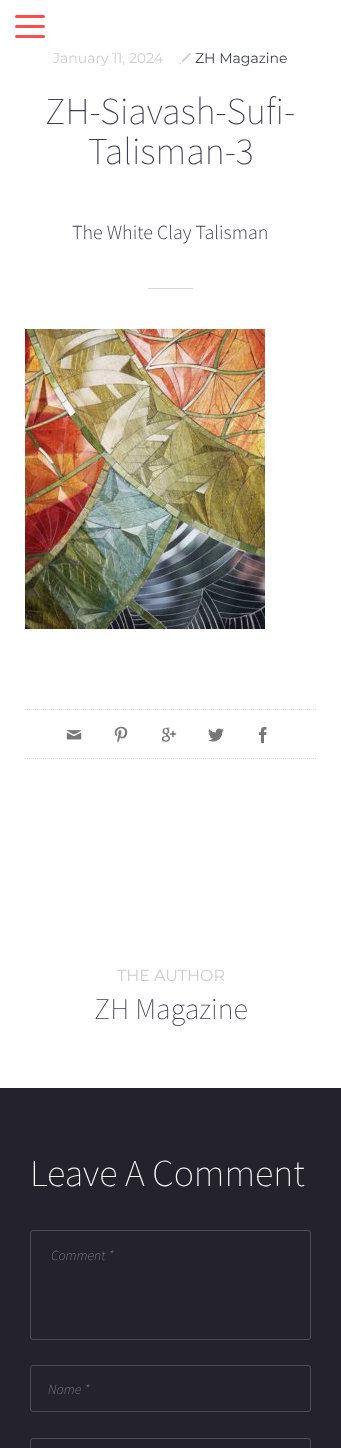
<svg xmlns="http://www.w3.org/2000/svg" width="341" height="1448">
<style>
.a{font:100 14px Montserrat;fill:#cecece}
.b{font:100 14px Montserrat;fill:#3f3f53}
.c{font:200 38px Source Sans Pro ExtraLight;fill:#3f3f53}
.d{font:300 20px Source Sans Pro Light;fill:#3f3f53}
.e{font:100 16px Montserrat;fill:#cecece}
.f{font:200 30px Source Sans Pro ExtraLight;fill:#3f3f53}
.g{font:200 38px Source Sans Pro ExtraLight;fill:#fff}
.h{font:italic 300 14px Source Sans Pro Light;fill:#777}
</style>
<rect width="100%" height="100%" fill="#fff"/>
<rect fill="#ff4d4d" x="15" y="25" width="30" height="3" rx="1.5"/>
<rect fill="#ff4d4d" x="15" y="15" width="30" height="3" rx="1.5"/>
<rect fill="#ff4d4d" x="15" y="35" width="30" height="3" rx="1.5"/>
<image href="1.png" x="179" y="53" width="12" height="12"/>
<path fill="#d9d9dd" d="M148 288h45v1H148z"/>
<image href="2.png" x="25" y="329" width="240" height="300"/>
<path fill="none" stroke="#d9d9dd" stroke-dasharray="1 1" d="M25 709.5h291"/>
<image href="3.png" x="66" y="730" width="16" height="10"/>
<image href="4.png" x="114" y="726" width="14" height="17"/>
<image href="5.png" x="161" y="727" width="16" height="15"/>
<image href="6.png" x="208" y="728" width="16" height="14"/>
<image href="7.png" x="259" y="727" width="8" height="16"/>
<path fill="none" stroke="#d9d9dd" stroke-dasharray="1 1" d="M25 758.5h291"/>
<path fill="#23222d" d="M0 1088h341v360H0z"/>
<rect fill="none" stroke="#4f4e57" x="30.5" y="1230.5" width="280" height="109" rx="2.5"/>
<rect fill="none" stroke="#4f4e57" x="30.5" y="1365.5" width="280" height="46" rx="2.5"/>
<rect fill="none" stroke="#4f4e57" x="30.5" y="1438.5" width="280" height="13" rx="2.5"/>
<text class="a" x="53" y="63">January 11, 2024</text>
<text class="b" x="195" y="63">ZH Magazine</text>
<text class="c" x="45" y="124">ZH-Siavash-Sufi-</text>
<text class="c" x="88" y="164">Talisman-3</text>
<text class="d" x="72" y="239">The White Clay Talisman</text>
<text class="e" x="117" y="981">THE AUTHOR</text>
<text class="f" x="94" y="1019">ZH Magazine</text>
<text class="g" x="30" y="1186">Leave A Comment</text>
<text class="h" x="51" y="1260">Comment *</text>
<text class="h" x="48" y="1394">Name *</text>
</svg>
